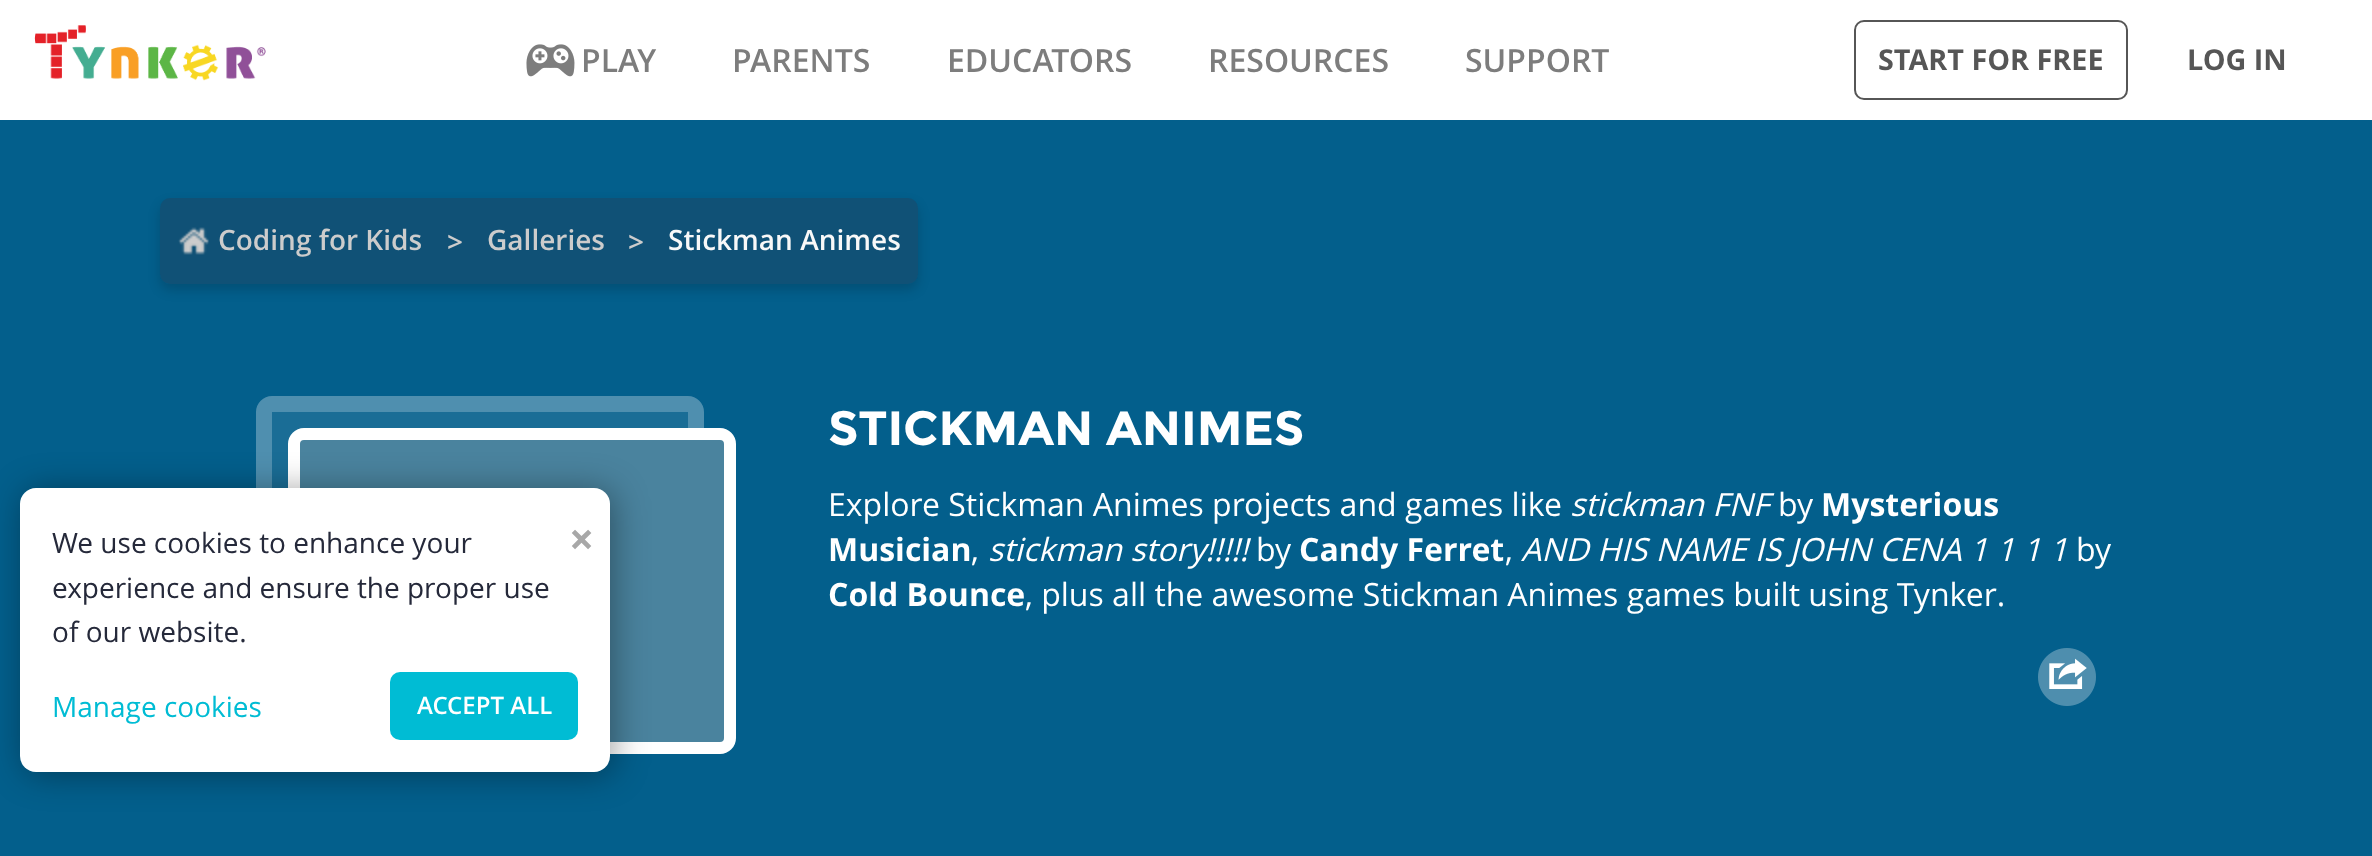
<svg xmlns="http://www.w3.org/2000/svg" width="2372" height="856">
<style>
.a{font:600 32px Open Sans;fill:#7d7d7d}
.b{font:bold 28.75px Open Sans;fill:#565656}
.c{font:600 28px Open Sans;fill:#ccc}
.d{font:600 28px Open Sans;fill:#f8f8f8}
.e{font:bold 48px Montserrat;fill:#fff}
.f{font:32px Open Sans;fill:#fff}
.g{font:italic 32px Open Sans;fill:#fff}
.h{font:bold 32px Open Sans;fill:#fff}
.i{font:28px Open Sans;fill:#25293a}
.j{font:28px Open Sans;fill:#00bcd4}
.k{font:600 24px Open Sans;fill:#fff}
.l{font:bold 44px Open Sans;fill:#a8a8a8}
</style>
<defs>
<clipPath id="clip1"><path d="M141 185h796v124h-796zm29 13h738c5.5 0 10 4.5 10 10v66c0 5.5-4.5 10-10 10h-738c-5.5 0-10-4.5-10-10v-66c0-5.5 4.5-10 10-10z" clip-rule="evenodd"/></clipPath>
</defs>
<rect width="100%" height="100%" fill="#fff"/>
<image href="1.png" x="34" y="25" width="232" height="56"/>
<image href="2.png" x="526" y="44" width="49" height="33"/>
<rect fill="none" stroke="#565656" stroke-width="2" x="1855" y="21" width="272" height="78" rx="9"/>
<path fill="#035f8c" d="M0 120h2372v736H0z"/>
<g clip-path="url(#clip1)">
<rect fill="#00000029" filter="blur(6px)" x="160" y="204" width="758" height="86" rx="10"/>
</g>
<rect fill="#2e33474d" x="160" y="198" width="758" height="86" rx="10"/>
<image href="3.png" x="178" y="227" width="31" height="28"/>
<path fill="#1a6d96" d="M272 412h416v76H272z"/>
<rect fill="none" stroke="#4f8faf" stroke-width="16" x="264" y="404" width="432" height="310" rx="8"/>
<rect fill="#4a839e" stroke="#fff" stroke-width="12" x="294" y="434" width="436" height="314" rx="10"/>
<image href="4.png" x="2038" y="648" width="58" height="58"/>
<rect fill="#0000005e" filter="blur(17px)" x="24" y="490" width="590" height="284" rx="16"/>
<rect fill="#fff" x="20" y="488" width="590" height="284" rx="16"/>
<rect fill="#00bcd4" x="390" y="672" width="188" height="68" rx="10"/>
<text class="a" x="581" y="72">PLAY</text>
<text class="a" x="732" y="72">PARENTS</text>
<text class="a" x="947" y="72">EDUCATORS</text>
<text class="a" x="1208" y="72">RESOURCES</text>
<text class="a" x="1465" y="72">SUPPORT</text>
<text class="b" x="1878" y="70">START FOR FREE</text>
<text class="b" x="2187" y="70">LOG IN</text>
<text class="c" x="218" y="250">Coding for Kids</text>
<text class="c" x="447" y="252">&gt;</text>
<text class="c" x="487" y="250">Galleries</text>
<text class="c" x="628" y="252">&gt;</text>
<text class="d" x="668" y="250">Stickman Animes</text>
<text class="e" x="828" y="445">STICKMAN ANIMES</text>
<text class="f" x="828" y="516">Explore Stickman Animes projects and games like</text>
<text class="g" x="1570" y="516">stickman FNF</text>
<text class="f" x="1778" y="516">by</text>
<text class="h" x="1821" y="516">Mysterious</text>
<text class="h" x="828" y="561">Musician</text>
<text class="f" x="971" y="561">,</text>
<text class="g" x="988" y="561">stickman story!!!!!</text>
<text class="f" x="1256" y="561">by</text>
<text class="h" x="1299" y="561">Candy Ferret</text>
<text class="f" x="1505" y="561">,</text>
<text class="g" x="1521" y="561">AND HIS NAME IS JOHN CENA 1 1 1 1</text>
<text class="f" x="2076" y="561">by</text>
<text class="h" x="828" y="606">Cold Bounce</text>
<text class="f" x="1025" y="606">, plus all the awesome Stickman Animes games built using Tynker.</text>
<text class="i" x="52" y="553">We use cookies to enhance your</text>
<text class="i" x="52" y="598">experience and ensure the proper use</text>
<text class="i" x="52" y="642">of our website.</text>
<text class="j" x="52" y="717">Manage cookies</text>
<text class="k" x="417" y="714">ACCEPT ALL</text>
<text class="l" x="569" y="555">×</text>
</svg>
